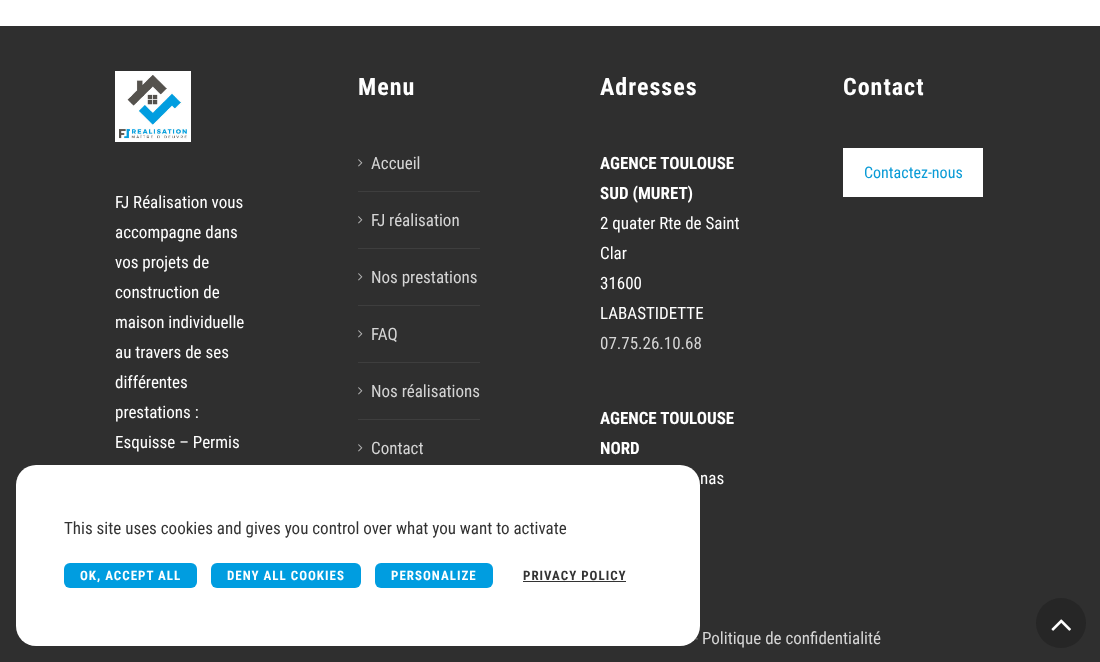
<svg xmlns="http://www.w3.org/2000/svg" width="1100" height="662">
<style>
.a{font:bold 24px Roboto Condensed;letter-spacing:1px;fill:#fff}
.b{font:17px Roboto Condensed;fill:#d5d5d5}
.c{font:bold 17px Roboto Condensed;fill:#fff}
.d{font:17px Roboto Condensed;fill:#fff}
.e{font:16px Roboto Condensed;fill:#0a9bd6}
.f{font:17px Roboto Condensed;fill:#696969}
.g{font:17px Roboto Condensed;fill:#333}
.h{font:bold 13px Roboto Condensed;letter-spacing:1px;fill:#fff}
.i{font:bold 13px Roboto Condensed;letter-spacing:1px;fill:#333}
</style>
<rect width="100%" height="100%" fill="#2f2f2f"/>
<path fill="#fff" d="M0 0h1100v26H0z"/>
<image href="1.png" x="358" y="159" width="5" height="8"/>
<path fill="#3e3e3e" d="M358 191h122v1H358z"/>
<image href="1.png" x="358" y="216" width="5" height="8"/>
<path fill="#3e3e3e" d="M358 248h122v1H358z"/>
<image href="1.png" x="358" y="273" width="5" height="8"/>
<path fill="#3e3e3e" d="M358 305h122v1H358z"/>
<image href="1.png" x="358" y="330" width="5" height="8"/>
<path fill="#3e3e3e" d="M358 362h122v1H358z"/>
<image href="1.png" x="358" y="387" width="5" height="8"/>
<path fill="#3e3e3e" d="M358 419h122v1H358z"/>
<image href="1.png" x="358" y="444" width="5" height="8"/>
<path fill="#fff" d="M843 148h140v49H843z"/>
<image href="2.png" x="115" y="71" width="76" height="71"/>
<circle fill="#262626" cx="1061" cy="623" r="25"/>
<image href="3.png" x="1051" y="619" width="20" height="12"/>
<text class="a" x="358" y="95">Menu</text>
<text class="b" x="371" y="169">Accueil</text>
<text class="b" x="371" y="226">FJ réalisation</text>
<text class="b" x="371" y="283">Nos prestations</text>
<text class="b" x="371" y="340">FAQ</text>
<text class="b" x="371" y="397">Nos réalisations</text>
<text class="b" x="371" y="454">Contact</text>
<text class="a" x="600" y="95">Adresses</text>
<text class="c" x="600" y="169">AGENCE TOULOUSE</text>
<text class="c" x="600" y="199">SUD (MURET)</text>
<text class="d" x="600" y="229">2 quater Rte de Saint</text>
<text class="d" x="600" y="259">Clar</text>
<text class="d" x="600" y="289">31600</text>
<text class="d" x="600" y="319">LABASTIDETTE</text>
<text class="b" x="600" y="349">07.75.26.10.68</text>
<text class="c" x="600" y="424">AGENCE TOULOUSE</text>
<text class="c" x="600" y="454">NORD</text>
<text class="d" x="700" y="484">nas</text>
<text class="a" x="843" y="95">Contact</text>
<text class="e" x="864" y="178">Contactez-nous</text>
<text class="d" x="115" y="208">FJ Réalisation vous</text>
<text class="d" x="115" y="238">accompagne dans</text>
<text class="d" x="115" y="268">vos projets de</text>
<text class="d" x="115" y="298">construction de</text>
<text class="d" x="115" y="328">maison individuelle</text>
<text class="d" x="115" y="358">au travers de ses</text>
<text class="d" x="115" y="388">différentes</text>
<text class="d" x="115" y="418">prestations :</text>
<text class="d" x="115" y="448">Esquisse – Permis</text>
<text class="f" x="694" y="644">-</text>
<text class="b" x="702" y="644">Politique de confidentialité</text>
<rect fill="#fff" x="16" y="465" width="684" height="181" rx="20"/>
<text class="g" x="64" y="534">This site uses cookies and gives you control over what you want to activate</text>
<rect fill="#009de0" x="64" y="563" width="133" height="25" rx="6"/>
<text class="h" x="80" y="580">OK, ACCEPT ALL</text>
<rect fill="#009de0" x="211" y="563" width="150" height="25" rx="6"/>
<text class="h" x="227" y="580">DENY ALL COOKIES</text>
<rect fill="#009de0" x="375" y="563" width="118" height="25" rx="6"/>
<text class="h" x="391" y="580">PERSONALIZE</text>
<text class="i" x="523" y="580">PRIVACY POLICY</text>
<path fill="#333" d="M523 581h103v1H523z"/>
</svg>
